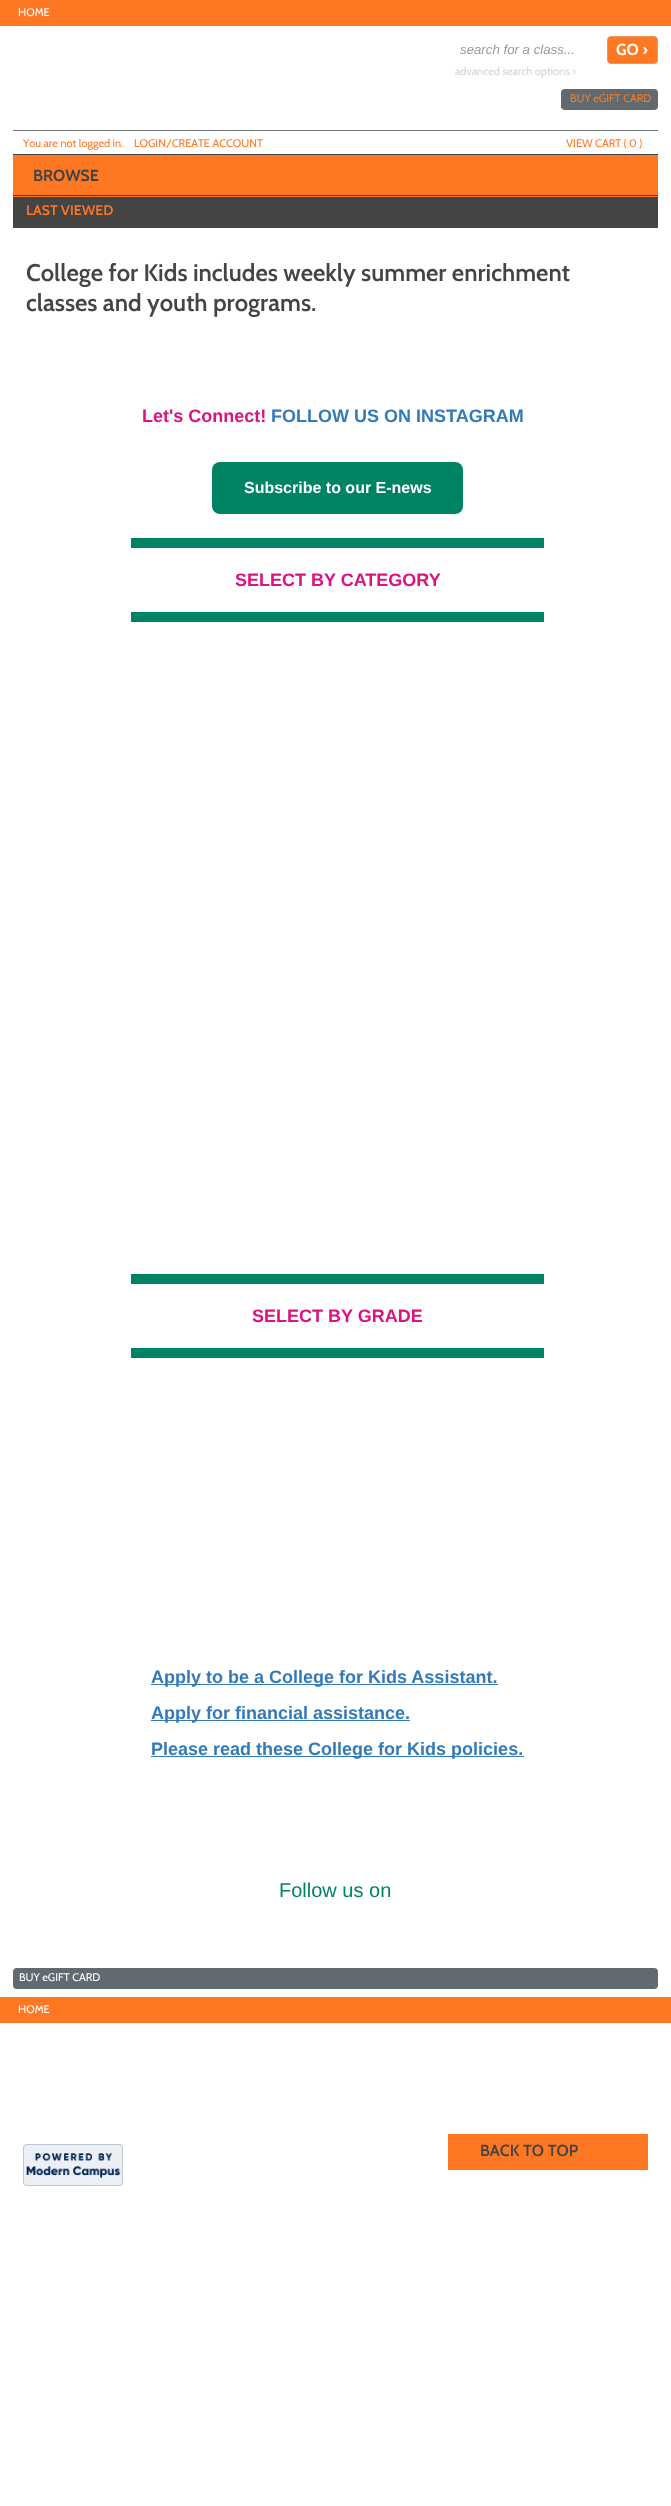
<svg xmlns="http://www.w3.org/2000/svg" width="671" height="2506">
<style>
.a{font:11px Cabin;fill:#fff}
.b{font:italic 13.25px Liberation Sans;fill:#999}
.c{font:bold 16px Cabin;fill:#fff}
.d{font:11px Cabin;fill:#d1d3d4}
.e{font:11px Cabin;fill:#fe7722}
.f{font:bold 16px Cabin;fill:#444}
.g{font:600 14px Cabin;fill:#fe7722}
.h{font:600 24px Cabin;fill:#444}
.i{font:bold 18px Liberation Sans;fill:#db1280}
.j{font:bold 18px Liberation Sans;fill:#337ab7}
.k{font:bold 16px Liberation Sans;fill:#fff}
.l{font:20px Liberation Sans;fill:#008365}
.m{font:600 16px Cabin;fill:#444}
</style>
<rect width="100%" height="100%" fill="#fff"/>
<path fill="#fe7722" d="M0 0h671v26H0z"/>
<rect fill="#fe7722" stroke="#ea9661" x="607.5" y="36.5" width="50" height="27" rx="3.5"/>
<rect fill="#616a6f" x="561" y="89" width="97" height="21" rx="4"/>
<path fill="#70787c" d="M13 130h645v1H13z"/>
<path fill="#3b4144" d="M13 154h645v1H13z"/>
<path fill="#fe7722" d="M13 155h645v40H13z"/>
<path fill="#444" d="M13 195h645v1H13z"/>
<path fill="#444" d="M13 197h645v31H13z"/>
<path fill="#fe7722" d="M13 196h645v1H13z"/>
<rect fill="#008265" x="212" y="462" width="251" height="52" rx="8"/>
<path fill="#008365" d="M131 538h413v10H131z"/>
<path fill="#008365" d="M131 612h413v10H131z"/>
<path fill="#008365" d="M131 1274h413v10H131z"/>
<path fill="#008365" d="M131 1348h413v10H131z"/>
<path fill="#337ab7" d="M151 1684h347v1H151z"/>
<path fill="#337ab7" d="M151 1720h259v1H151z"/>
<path fill="#337ab7" d="M151 1756h373v1H151z"/>
<rect fill="#616a6f" x="13" y="1968" width="645" height="21" rx="4"/>
<path fill="#fe7722" d="M0 1997h671v26H0z"/>
<image href="1.png" x="23" y="2144" width="100" height="42"/>
<path fill="#fe7722" d="M448 2134h200v36H448z"/>
<text class="a" x="18" y="16">HOME</text>
<text class="b" x="460" y="54">search for a class...</text>
<text class="c" x="616" y="55">GO ›</text>
<text class="d" x="455" y="75">advanced search options ›</text>
<text class="e" x="570" y="102">BUY eGIFT CARD</text>
<text class="e" x="23" y="147">You are not logged in.</text>
<text class="e" x="134" y="147">LOGIN/CREATE ACCOUNT</text>
<text class="e" x="566" y="147">VIEW CART ( 0 )</text>
<text class="f" x="33" y="181">BROWSE</text>
<text class="g" x="26" y="215">LAST VIEWED</text>
<text class="h" x="26" y="281">College for Kids includes weekly summer enrichment</text>
<text class="h" x="26" y="311">classes and youth programs.</text>
<text class="i" x="142" y="422">Let's Connect!</text>
<text class="j" x="271" y="422">FOLLOW US ON INSTAGRAM</text>
<text class="k" x="244" y="493">Subscribe to our E-news</text>
<text class="i" x="235" y="586">SELECT BY CATEGORY</text>
<text class="i" x="252" y="1322">SELECT BY GRADE</text>
<text class="j" x="151" y="1683">Apply to be a College for Kids Assistant.</text>
<text class="j" x="151" y="1719">Apply for financial assistance.</text>
<text class="j" x="151" y="1755">Please read these College for Kids policies.</text>
<text class="l" x="279" y="1897">Follow us on</text>
<text class="a" x="19" y="1981">BUY eGIFT CARD</text>
<text class="a" x="18" y="2013">HOME</text>
<text class="m" x="480" y="2156">BACK TO TOP</text>
</svg>
